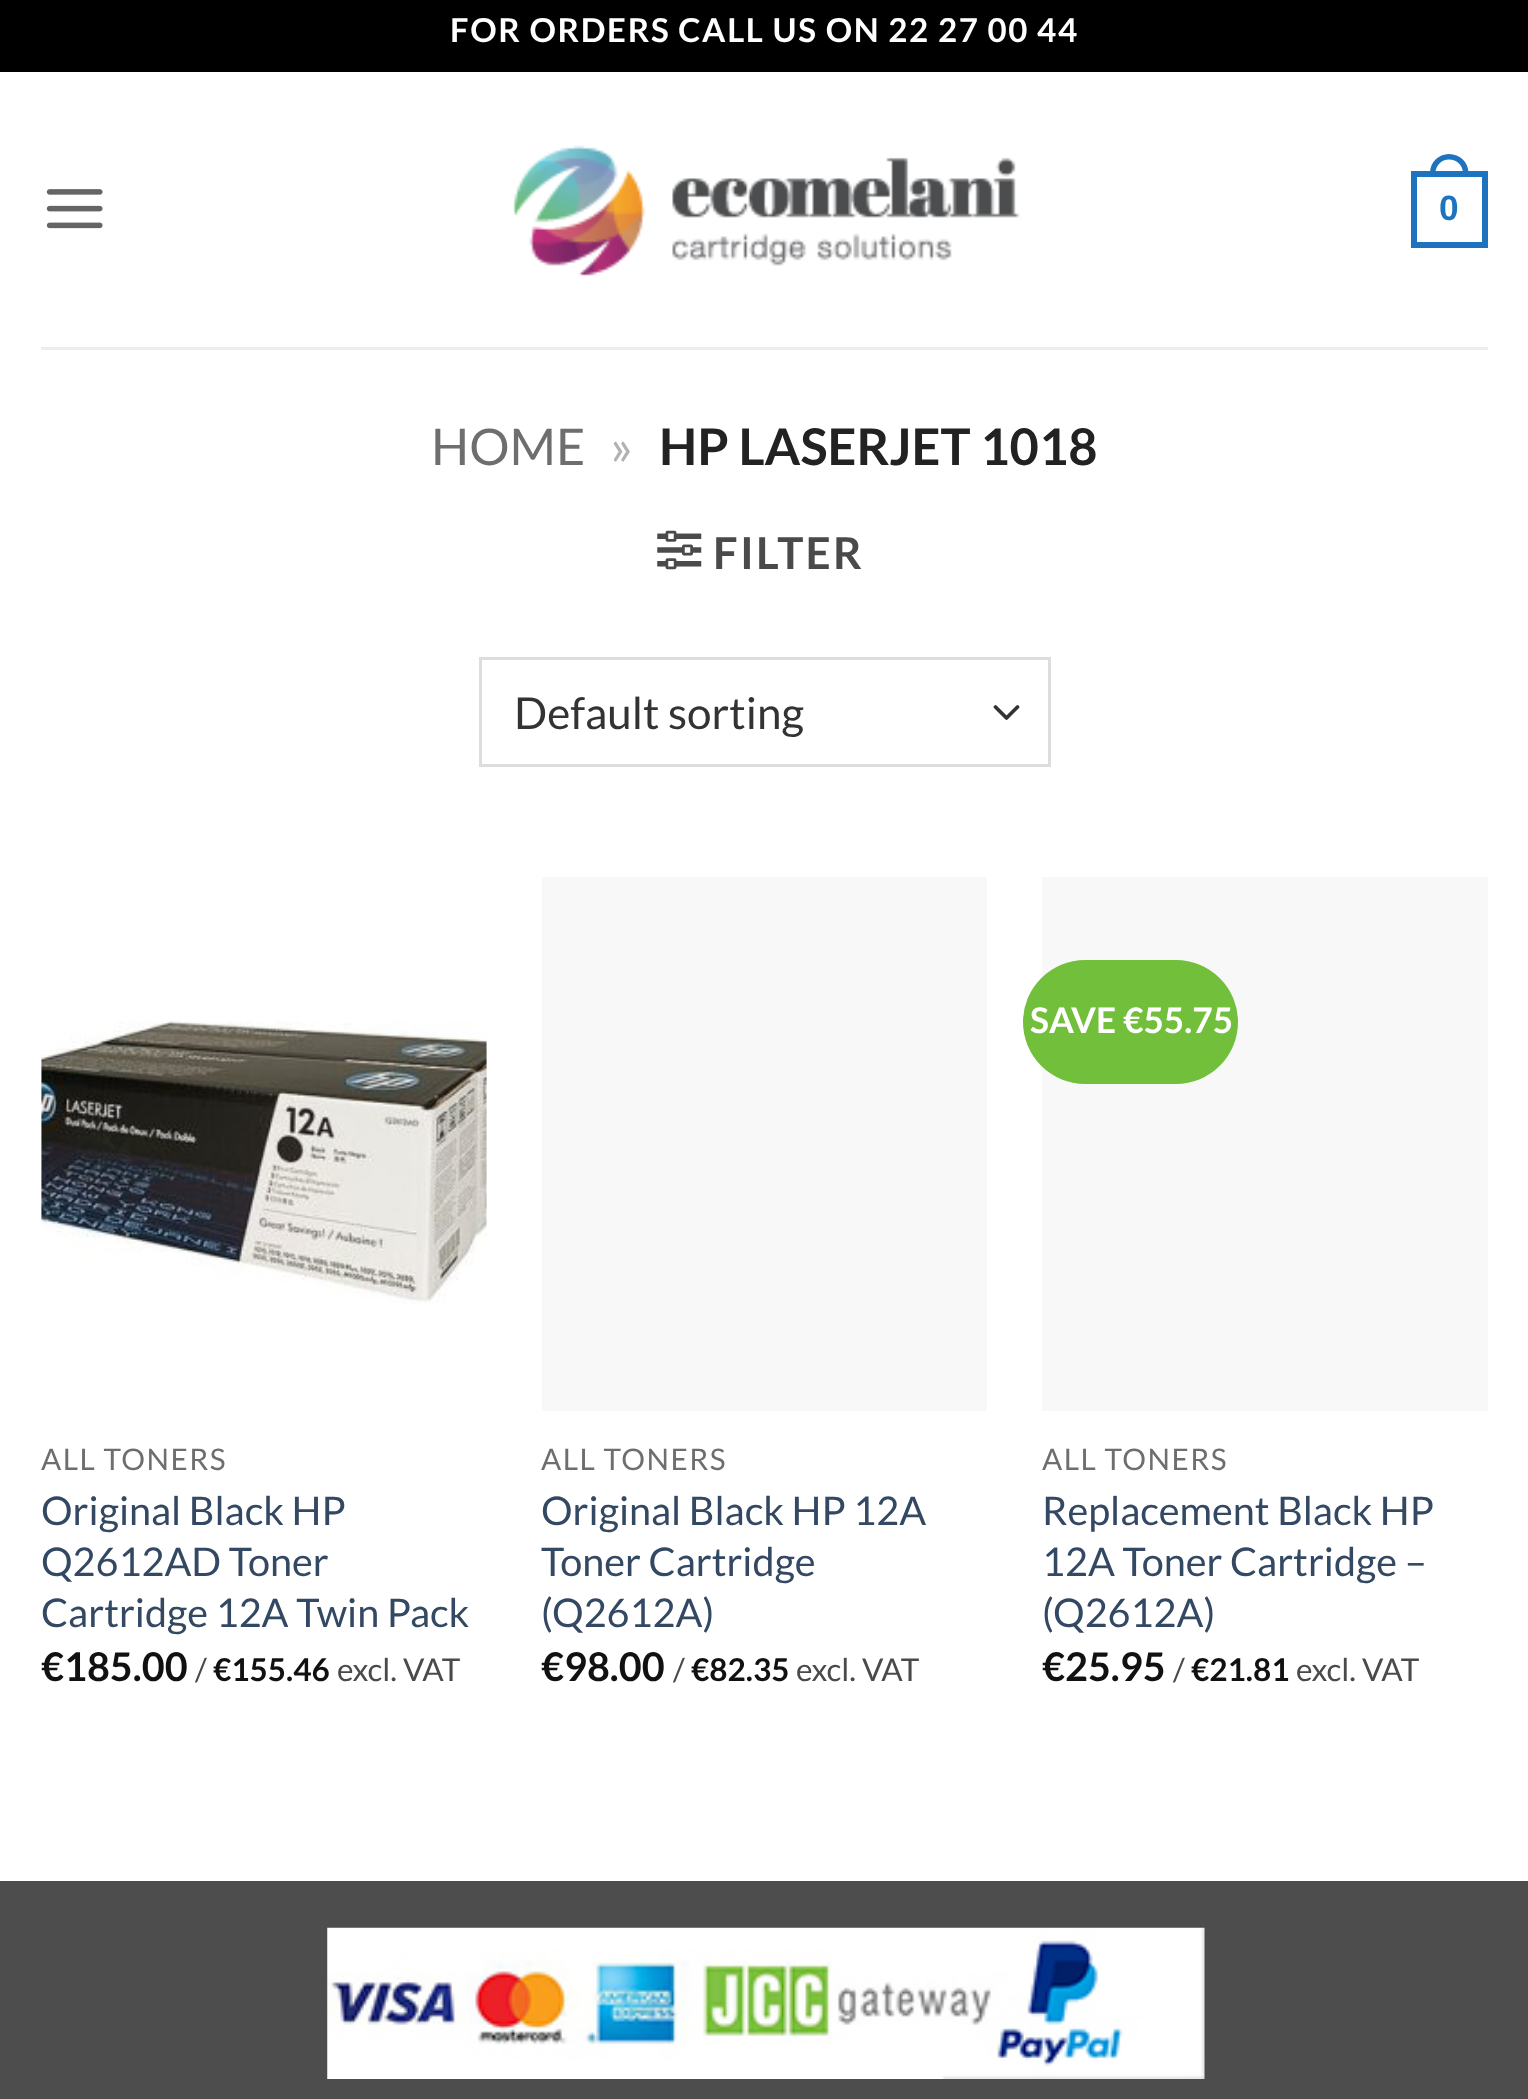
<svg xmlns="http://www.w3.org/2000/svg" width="1528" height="2099">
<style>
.a{font:bold 33px Lato;letter-spacing:1.65px;fill:#fff}
.b{font:bold 35.25px Liberation Sans;fill:#1e73be}
.c{font:50.5px Lato;fill:#6e6e6e}
.d{font:50.5px Lato;fill:#b2b2b2}
.e{font:bold 50.5px Lato;fill:#222}
.f{font:bold 44px Lato;letter-spacing:2.25px;fill:#4a4a4a}
.g{font:44px Lato;fill:#333}
.h{font:29.75px Lato;letter-spacing:1.5px;fill:#6e6e6e}
.i{font:39.6px Lato;fill:#334862}
.j{font:bold 39.6px Lato;fill:#111}
.k{font:31.5px Lato;fill:#4a4a4a}
.l{font:bold 31.5px Lato;fill:#111}
.m{font:bold 35.25px Lato;fill:#fff}
</style>
<rect width="100%" height="100%" fill="#fff"/>
<path fill="#000" d="M0 0h1528v72H0z"/>
<image href="1.png" x="46" y="189" width="57" height="40"/>
<image href="2.png" x="513" y="145" width="507" height="131"/>
<path fill="none" stroke="#1e73be" stroke-width="6" d="M1414 174h71v71H1414z"/>
<path fill="#1e73be" fill-rule="evenodd" d="M1449 154c11 0 19.5 8.5 19.5 19v3h-38.5v-3c0-10.5 8.5-19 19-19zm0 5.5c8 0 14 6 14 13.5v3h-27.5v-3c0-7.5 6-13.5 13.5-13.5z"/>
<path fill="#ededed" d="M41 347h1447v3H41z"/>
<image href="3.png" x="657" y="530" width="45" height="40"/>
<path fill="none" stroke="#333" stroke-width="3.7" stroke-linecap="round" stroke-linejoin="round" d="M995.5 707l11 11l11-11"/>
<path fill="none" stroke="#ddd" stroke-width="3" d="M480.5 658.5h569v107H480.5z"/>
<image href="4.png" x="41" y="1021" width="446" height="283"/>
<path fill="#f8f8f8" d="M542 877h445v534H542z"/>
<path fill="#f8f8f8" d="M1042 877h446v534H1042z"/>
<rect fill="#72bf3b" x="1023" y="960" width="215" height="124" rx="62"/>
<path fill="#4d4d4d" d="M0 1881h1528v218H0z"/>
<image href="5.png" x="327" y="1927" width="878" height="152"/>
<text class="a" x="450" y="42">FOR ORDERS CALL US ON 22 27 00 44</text>
<text class="b" x="1439" y="220">0</text>
<text class="c" x="431" y="465">HOME</text>
<text class="d" x="610" y="465">»</text>
<text class="e" x="659" y="465">HP LASERJET 1018</text>
<text class="f" x="713" y="569">FILTER</text>
<text class="g" x="514" y="729">Default sorting</text>
<text class="h" x="41" y="1470">ALL TONERS</text>
<text class="i" x="41" y="1525">Original Black HP</text>
<text class="i" x="41" y="1576">Q2612AD Toner</text>
<text class="i" x="41" y="1627">Cartridge 12A Twin Pack</text>
<text class="j" x="41" y="1681">€185.00</text>
<text class="k" x="195" y="1681">/</text>
<text class="l" x="213" y="1681">€155.46</text>
<text class="k" x="337" y="1681">excl. VAT</text>
<text class="h" x="541" y="1470">ALL TONERS</text>
<text class="i" x="541" y="1525">Original Black HP 12A</text>
<text class="i" x="541" y="1576">Toner Cartridge</text>
<text class="i" x="541" y="1627">(Q2612A)</text>
<text class="j" x="541" y="1681">€98.00</text>
<text class="k" x="673" y="1681">/</text>
<text class="l" x="691" y="1681">€82.35</text>
<text class="k" x="796" y="1681">excl. VAT</text>
<text class="m" x="1030" y="1033">SAVE €55.75</text>
<text class="h" x="1042" y="1470">ALL TONERS</text>
<text class="i" x="1042" y="1525">Replacement Black HP</text>
<text class="i" x="1042" y="1576">12A Toner Cartridge –</text>
<text class="i" x="1042" y="1627">(Q2612A)</text>
<text class="j" x="1042" y="1681">€25.95</text>
<text class="k" x="1173" y="1681">/</text>
<text class="l" x="1191" y="1681">€21.81</text>
<text class="k" x="1296" y="1681">excl. VAT</text>
</svg>
